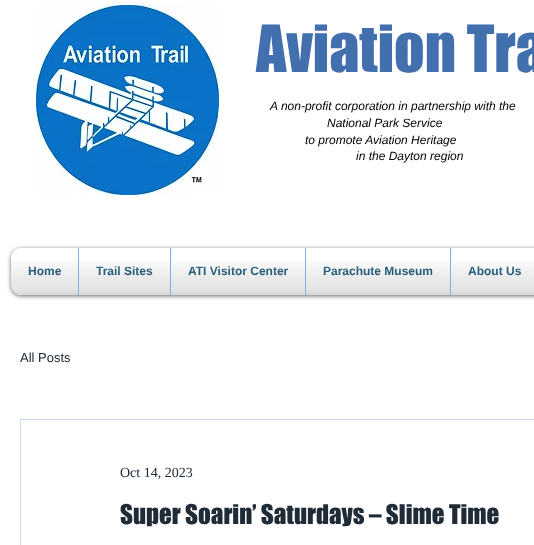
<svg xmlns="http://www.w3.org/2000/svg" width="534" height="545">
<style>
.a{font:60px 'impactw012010';fill:#426fad}
.b{font:italic 12px Liberation Sans;fill:#000}
.c{font:bold 12px Liberation Sans;fill:#01456a}
.d{font:13px Liberation Sans;fill:#202b38}
.e{font:14px Liberation Serif;fill:#202b38}
.f{font:25px 'impactw012010';fill:#202b38}
</style>
<rect width="100%" height="100%" fill="#fff"/>
<image href="1.png" x="36" y="5" width="183" height="190"/>
<rect fill="#00000099" filter="blur(2px)" x="11" y="249" width="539" height="47" rx="10"/>
<image href="2.png" x="11" y="285" width="10" height="10"/>
<path fill="#fff" d="M21 248h57v47h-57c-5.5 0-10-4.5-10-10v-27c0-5.5 4.5-10 10-10z"/>
<path fill="#fff" d="M79 248h91v47H79z"/>
<path fill="#83ace4" d="M78 248h1v47H78z"/>
<path fill="#fff" d="M171 248h134v47H171z"/>
<path fill="#83ace4" d="M170 248h1v47H170z"/>
<path fill="#fff" d="M306 248h144v47H306z"/>
<path fill="#83ace4" d="M305 248h1v47H305z"/>
<path fill="#fff" d="M451 248h83v47H451z"/>
<path fill="#83ace4" d="M450 248h1v47H450z"/>
<path fill="none" stroke="#c8daf3" d="M20.5 419.5h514v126H20.5z"/>
<text class="a" x="256" y="72">Aviation Tra</text>
<text class="b" x="270" y="110">A non-profit corporation in partnership with the</text>
<text class="b" x="327" y="127">National Park Service</text>
<text class="b" x="305" y="144">to promote Aviation Heritage</text>
<text class="b" x="356" y="160">in the Dayton region</text>
<text class="c" x="28" y="275">Home</text>
<image href="3.png" x="28" y="266" width="33" height="9"/>
<image href="4.png" x="11" y="261" width="67" height="34"/>
<text class="c" x="96" y="275">Trail Sites</text>
<image href="5.png" x="96" y="266" width="57" height="9"/>
<image href="6.png" x="79" y="261" width="91" height="34"/>
<text class="c" x="188" y="275">ATI Visitor Center</text>
<image href="7.png" x="188" y="266" width="100" height="9"/>
<image href="8.png" x="171" y="261" width="134" height="34"/>
<text class="c" x="323" y="275">Parachute Museum</text>
<image href="9.png" x="323" y="266" width="110" height="9"/>
<image href="10.png" x="306" y="261" width="144" height="34"/>
<text class="c" x="468" y="275">About Us</text>
<image href="11.png" x="468" y="266" width="53" height="9"/>
<image href="12.png" x="451" y="261" width="83" height="34"/>
<text class="d" x="20" y="362">All Posts</text>
<text class="e" x="120" y="477">Oct 14, 2023</text>
<text class="f" x="120" y="524">Super Soarin’ Saturdays – Slime Time</text>
</svg>
